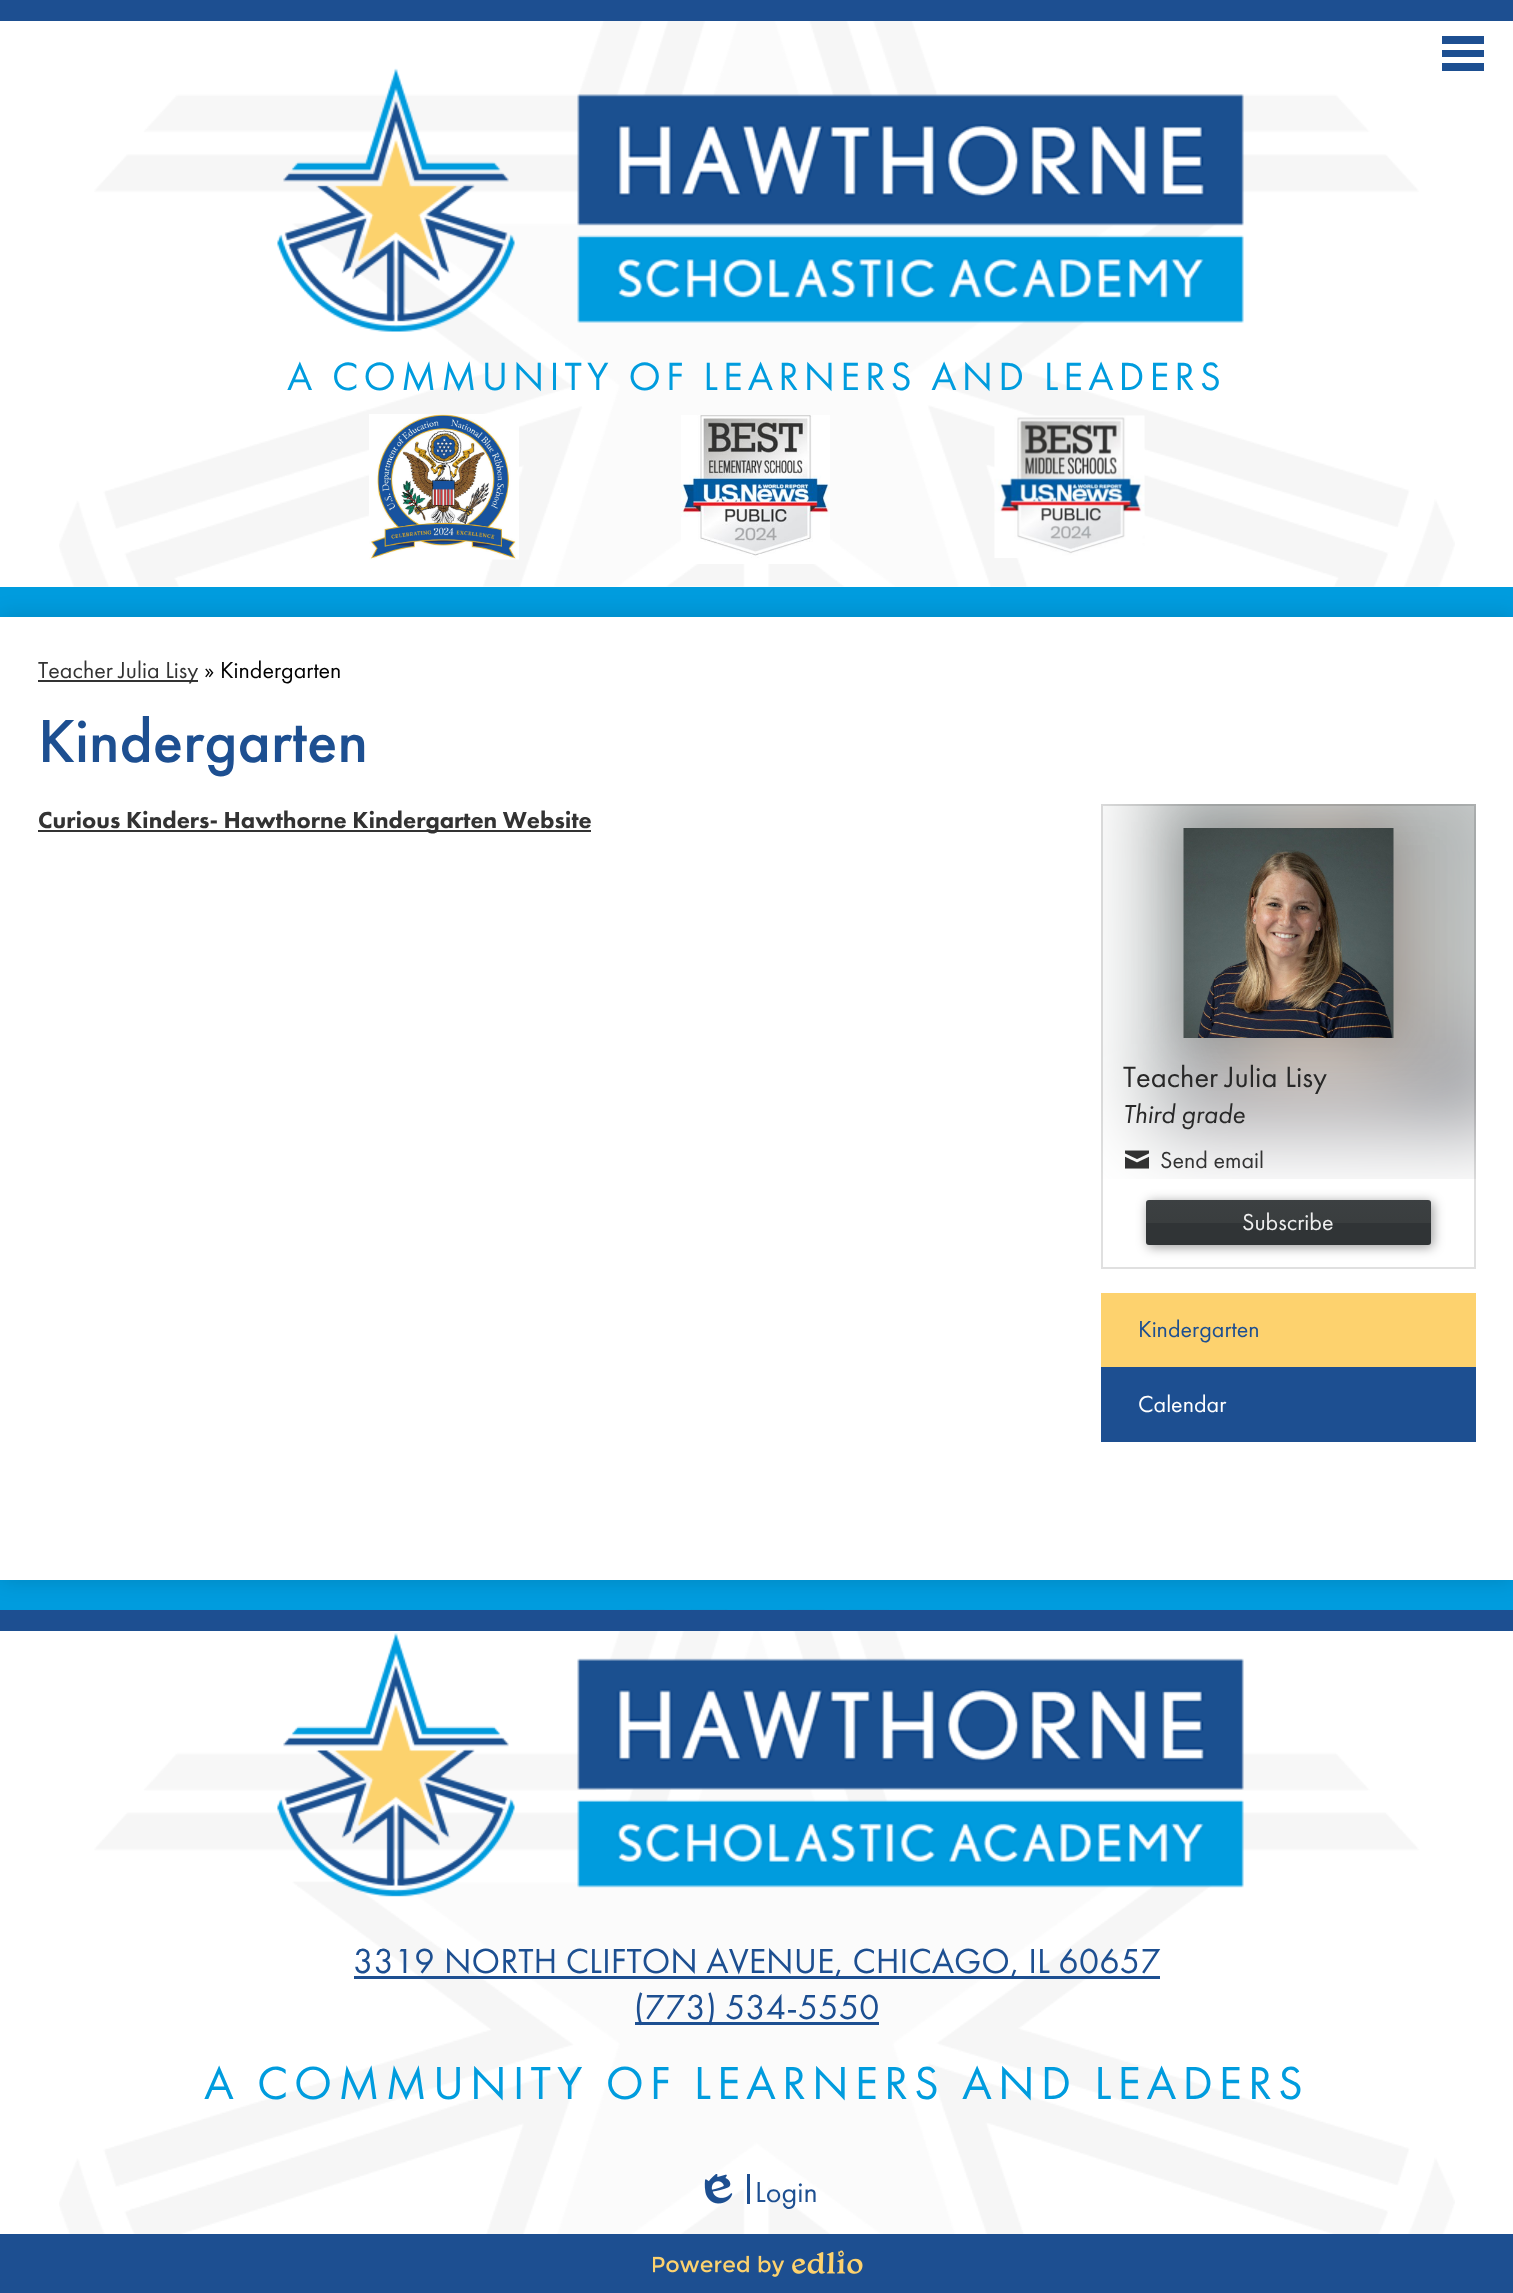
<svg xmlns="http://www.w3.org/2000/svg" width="1513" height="2293">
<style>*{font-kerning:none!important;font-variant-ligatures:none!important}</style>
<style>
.a{font:40.8px Futura PT;letter-spacing:5.1px;fill:#009cde}
.b{font:24px Futura PT;fill:#333}
.c{font:24px Futura PT;fill:#000}
.d{font:500 63px Futura PT;fill:#1d4f91}
.e{font:900 24px Futura PT;fill:#333}
.f{font:30.5px Futura PT;fill:#282828}
.g{font:italic 27px Futura PT;fill:#282828}
.h{font:24px Futura PT;fill:#efefef}
.i{font:24px Futura PT;fill:#1d4f91}
.j{font:24px Futura PT;fill:#fff}
.k{font:36px Futura PT;fill:#1d4f91}
.l{font:48px Futura PT;letter-spacing:6px;fill:#009cde}
.m{font:30px Futura PT;fill:#1d4f91}
</style>
<defs>
<clipPath id="clip1"><path d="M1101 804h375v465H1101z"/></clipPath>
<linearGradient id="g1" gradientUnits="userSpaceOnUse" x1="1289" y1="1200" x2="1289" y2="1245"><stop offset="0" stop-color="#3c4042"/><stop offset="0.5" stop-color="#3a3e3f"/><stop offset="0.51" stop-color="#303436"/><stop offset="1" stop-color="#303436"/></linearGradient>
</defs>
<rect width="100%" height="100%" fill="#009cde"/>
<path fill="#fff" d="M0 1631h1513v603H0z"/>
<image href="9.png" x="59" y="1609" width="1396" height="625"/>
<path fill="#1d4f91" d="M0 1610h1513v21H0z"/>
<path fill="#00000026" filter="blur(11px)" d="M0 617h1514v963H0z"/>
<path fill="#fff" d="M0 21h1513v566H0z"/>
<image href="1.png" x="59" y="21" width="1396" height="566"/>
<path fill="#1d4f91" d="M0 0h1513v21H0z"/>
<path fill="#1d4f91" d="M1442 36h42v8H1442z"/>
<path fill="#1d4f91" d="M1442 50h42v7H1442z"/>
<path fill="#1d4f91" d="M1442 63h42v8H1442z"/>
<image href="2.png" x="277" y="68" width="967" height="264"/>
<image href="3.png" x="369" y="414" width="150" height="146"/>
<image href="4.png" x="681" y="415" width="149" height="149"/>
<image href="5.png" x="994" y="415" width="151" height="143"/>
<path fill="#fff" d="M0 617h1513v963H0z"/>
<path fill="#333" d="M38 680h160v2H38z"/>
<path fill="#333" d="M38 830h553v2H38z"/>
<image href="7.png" x="1101" y="804" width="375" height="375"/>
<path fill="none" stroke="#0000001f" stroke-width="2" d="M1102 805h373v463H1102z"/>
<g clip-path="url(#clip1)">
<path fill="#00000033" filter="blur(22.5px)" d="M1178 822h222v222H1178z"/>
</g>
<image href="6.png" x="1183" y="828" width="211" height="210"/>
<image href="8.png" x="1125" y="1150" width="24" height="19"/>
<rect fill="#00000066" filter="blur(6px)" x="1148" y="1202" width="285" height="45" rx="3"/>
<rect fill="url(#g1)" x="1146" y="1200" width="285" height="45" rx="3"/>
<path fill="#1d4f91" d="M1101 1367h375v75H1101z"/>
<path fill="#fdd26e" d="M1101 1293h375v74H1101z"/>
<image href="10.png" x="277" y="1633" width="967" height="264"/>
<path fill="#1d4f91" d="M354 1976h806v3H354z"/>
<path fill="#1d4f91" d="M635 2022h244v3H635z"/>
<path fill="#1d4f91" d="M747 2174h3v30H747z"/>
<image href="11.png" x="704" y="2174" width="29" height="30"/>
<path fill="#1d4f91" d="M0 2234h1513v59H0z"/>
<image href="12.png" x="653" y="2250" width="210" height="27"/>
<text class="a" x="287" y="390">A COMMUNITY OF LEARNERS AND LEADERS</text>
<text class="b" x="38" y="678">Teacher Julia Lisy</text>
<text class="c" x="204" y="678">» Kindergarten</text>
<text class="d" x="38" y="762">Kindergarten</text>
<text class="e" x="38" y="828">Curious Kinders- Hawthorne Kindergarten Website</text>
<text class="f" x="1123" y="1087">Teacher Julia</text>
<text class="f" x="1285" y="1087">Lisy</text>
<text class="g" x="1123" y="1123">Third grade</text>
<text class="b" x="1160" y="1168">Send email</text>
<text class="h" x="1242" y="1230">Subscribe</text>
<text class="i" x="1138" y="1337">Kindergarten</text>
<text class="j" x="1138" y="1412">Calendar</text>
<text class="k" x="353" y="1973">3319</text>
<text class="k" x="444" y="1973">NORTH CLIFTON AVENUE, CHICAGO, IL 60657</text>
<text class="k" x="634" y="2019">(773) 534-5550</text>
<text class="l" x="204" y="2099">A COMMUNITY OF LEARNERS AND LEADERS</text>
<text class="m" x="755" y="2202">Login</text>
</svg>
